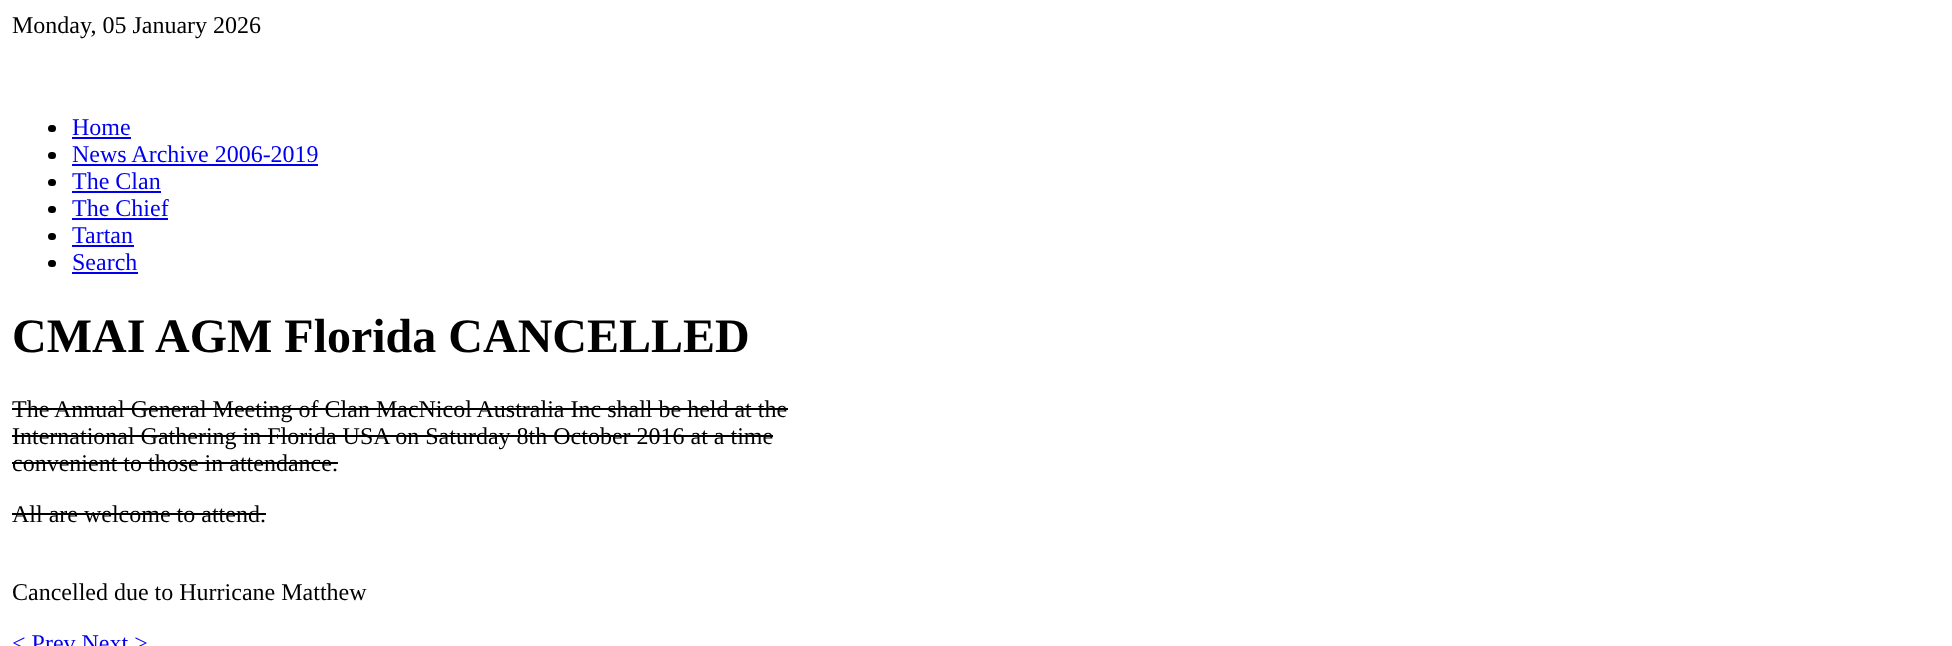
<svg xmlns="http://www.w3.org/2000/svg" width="1952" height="646">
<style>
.a{font:24px Liberation Serif;fill:#000}
.b{font:24px Liberation Serif;fill:#00e}
.c{font:bold 48px Liberation Serif;fill:#000}
</style>
<rect width="100%" height="100%" fill="#fff"/>
<rect fill="#000" x="48" y="125" width="8" height="7" rx="3.5"/>
<path fill="#00e" d="M72 137h59v2H72z"/>
<rect fill="#000" x="48" y="152" width="8" height="7" rx="3.5"/>
<path fill="#00e" d="M72 164h246v2H72z"/>
<rect fill="#000" x="48" y="179" width="8" height="7" rx="3.5"/>
<path fill="#00e" d="M72 191h89v2H72z"/>
<rect fill="#000" x="48" y="206" width="8" height="7" rx="3.5"/>
<path fill="#00e" d="M72 218h96v2H72z"/>
<rect fill="#000" x="48" y="233" width="8" height="7" rx="3.5"/>
<path fill="#00e" d="M72 245h62v2H72z"/>
<rect fill="#000" x="48" y="260" width="8" height="7" rx="3.5"/>
<path fill="#00e" d="M72 272h66v2H72z"/>
<path fill="#000" d="M12 408h776v2H12z"/>
<path fill="#000" d="M12 435h761v2H12z"/>
<path fill="#000" d="M12 462h326v2H12z"/>
<path fill="#000" d="M12 513h254v2H12z"/>
<text class="a" x="12" y="33">Monday, 05 January 2026</text>
<text class="b" x="72" y="135">Home</text>
<text class="b" x="72" y="162">News Archive 2006-2019</text>
<text class="b" x="72" y="189">The Clan</text>
<text class="b" x="72" y="216">The Chief</text>
<text class="b" x="72" y="243">Tartan</text>
<text class="b" x="72" y="270">Search</text>
<text class="c" x="12" y="352">CMAI</text>
<text class="c" x="155" y="352">AGM Florida CANCELLED</text>
<text class="a" x="12" y="417">The Annual General Meeting of Clan MacNicol Australia Inc shall be held at the</text>
<text class="a" x="12" y="444">International Gathering in Florida USA on Saturday 8th October 2016 at a time</text>
<text class="a" x="12" y="471">convenient to those in attendance.</text>
<text class="a" x="12" y="522">All are welcome to attend.</text>
<text class="a" x="12" y="600">Cancelled due to Hurricane Matthew</text>
<text class="b" x="12" y="651">&lt; Prev Next &gt;</text>
</svg>
